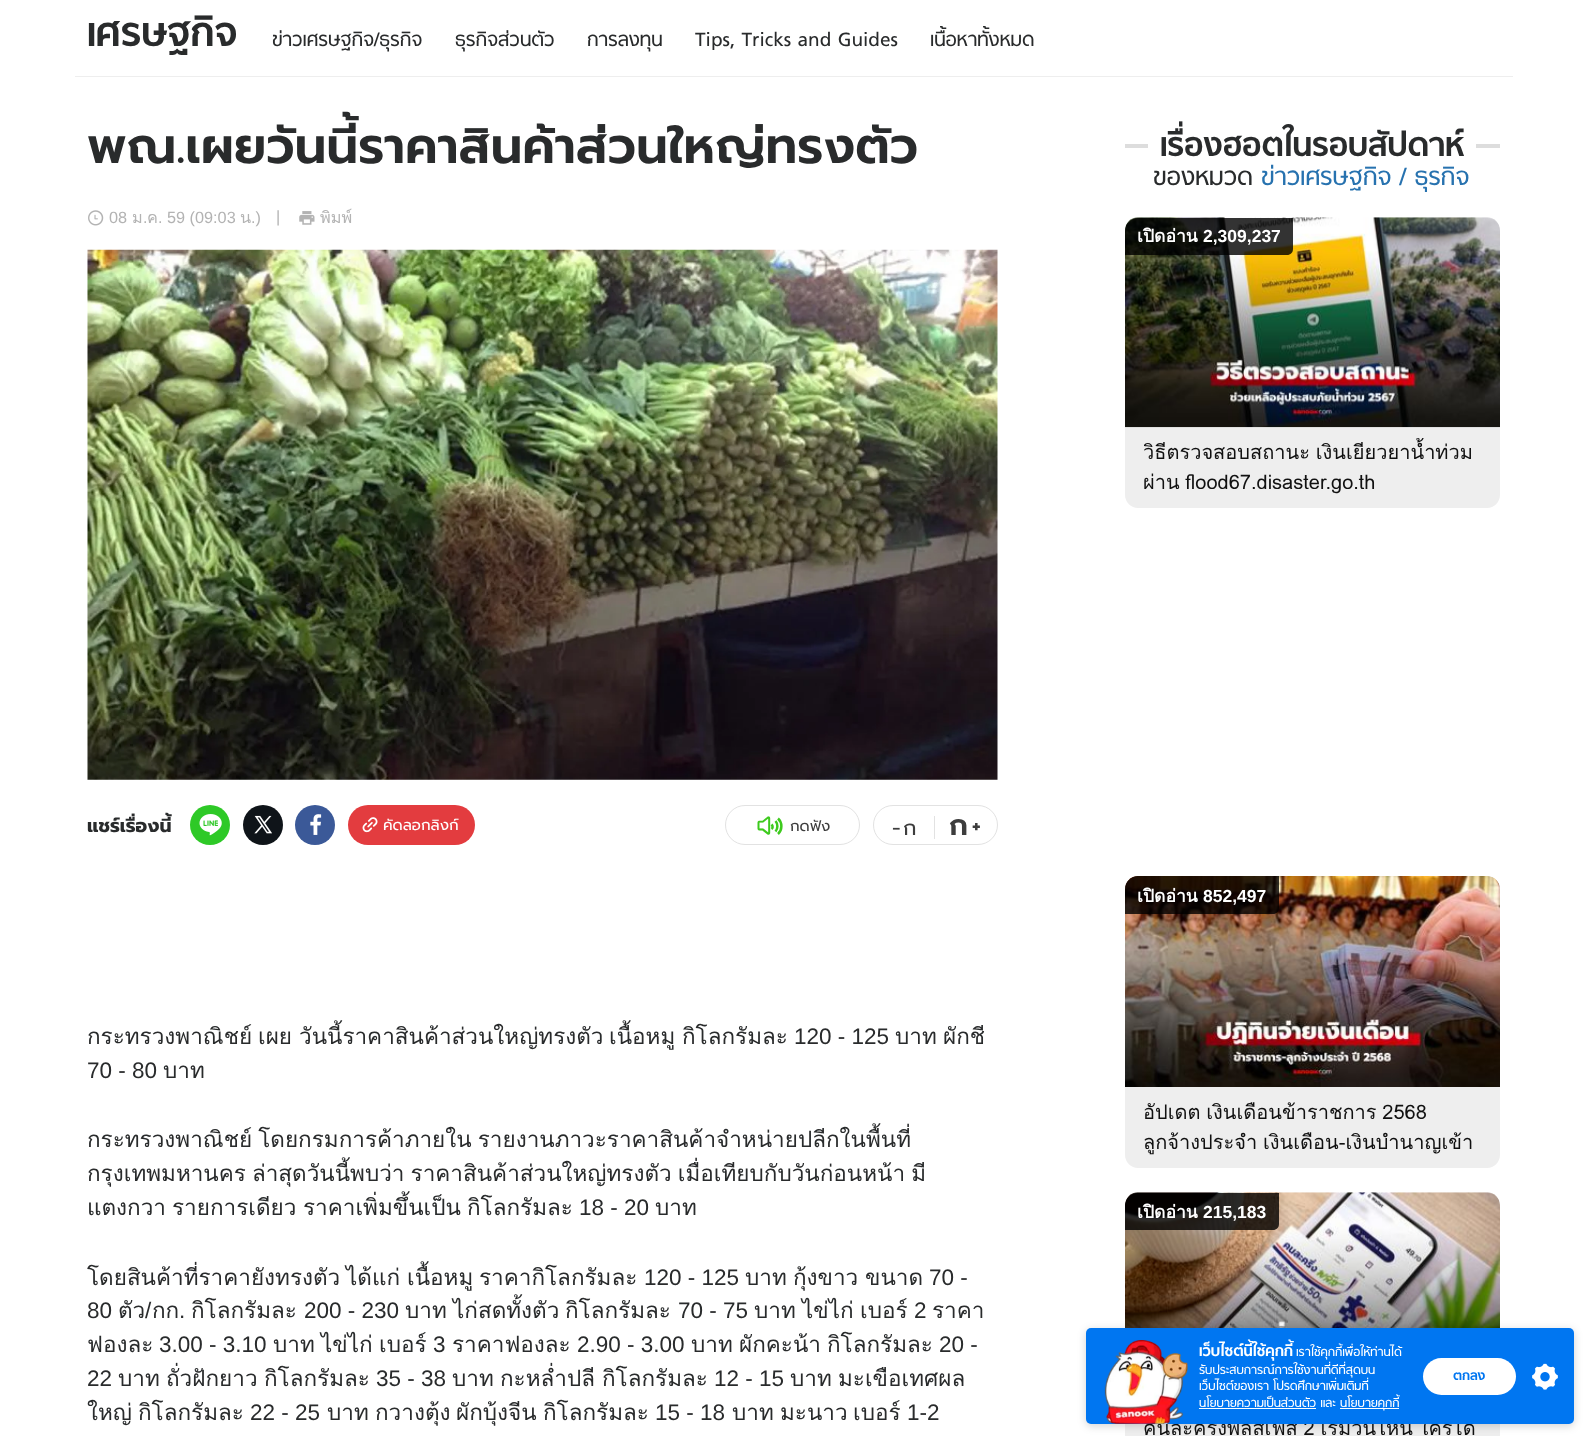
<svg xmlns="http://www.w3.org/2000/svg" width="1586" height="1436">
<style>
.a{font:bold 45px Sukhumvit;fill:#292b2c}
.b{font:21.9px Sukhumvit;fill:#292b2c}
.c{font:600 50px Prompt;fill:#292b2c}
.d{font:16.25px Liberation Sans;fill:#b3b3b3}
.e{font:16.25px Loma;fill:#b3b3b3}
.f{font:bold 18.75px Prompt;fill:#292b2c}
.g{font:15px Prompt;fill:#fff}
.h{font:15px Prompt;fill:#3d3d3d}
.i{font:21px Prompt;fill:#3d3d3d}
.j{font:600 29px Prompt;fill:#3d3d3d}
.k{font:600 21px Prompt;fill:#3d3d3d}
.l{font:22.5px Loma;fill:#292b2c}
.m{font:22.5px Liberation Sans;fill:#292b2c}
.n{font:bold 37px Sukhumvit;fill:#292b2c}
.o{font:28px Sukhumvit;fill:#292b2c}
.p{font:28px Sukhumvit;fill:#2772af}
.q{font:bold 17.5px Loma;fill:#fff}
.r{font:bold 17.5px Liberation Sans;fill:#fff}
.s{font:20px Loma;fill:#111}
.t{font:bold 17.25px Sukhumvit;fill:#fff}
.u{font:13.75px Sukhumvit;fill:#fff}
.v{font:bold 15px Sukhumvit;fill:#0076f1}
</style>
<defs>
<clipPath id="clip1"><path d="M1144 438h337v60H1144z"/></clipPath>
<clipPath id="clip2"><path d="M1144 1098h337v60H1144z"/></clipPath>
</defs>
<rect width="100%" height="100%" fill="#fff"/>
<path fill="#eee" d="M75 76h1438v1H75z"/>
<image href="1.png" x="88" y="210" width="16" height="16"/>
<image href="2.png" x="299" y="211" width="16" height="14"/>
<image href="3.png" x="87" y="249" width="911" height="531"/>
<circle fill="#2ec927" cx="210" cy="825" r="20"/>
<image href="4.png" x="199" y="814" width="23" height="22"/>
<circle fill="#0f1419" cx="263" cy="825" r="20"/>
<image href="5.png" x="254" y="815" width="18" height="19"/>
<circle fill="#3b5998" cx="315" cy="825" r="20"/>
<image href="6.png" x="310" y="814" width="12" height="21"/>
<rect fill="#e33c3f" x="348" y="805" width="127" height="40" rx="20"/>
<rect fill="none" stroke="#e2e2e2" x="725.5" y="805.5" width="134" height="39" rx="19.5"/>
<image href="8.png" x="757" y="816" width="14" height="19"/>
<path fill="none" stroke="#3dca1d" stroke-width="2.5" d="M771.5 824.5c1.5 1.5 1.5 3.5 0 4.5m4-8c2.5 3 2.5 7.5 0 10.5m2.5-13c4.5 4 4.5 11.5 0 15.5"/>
<rect fill="none" stroke="#e2e2e2" x="873.5" y="805.5" width="124" height="39" rx="19.5"/>
<path fill="#e2e2e2" d="M934 816h1v23H934z"/>
<path fill="#ddd" d="M1125 144h23v4H1125z"/>
<path fill="#ddd" d="M1476 144h24v4H1476z"/>
<path fill="#eee" d="M1138 218h349c7 0 13 6 13 13v197h-375v-197c0-7 6-13 13-13z"/>
<image href="9.png" x="1125" y="217" width="375" height="211"/>
<path fill="#000000cc" d="M1138 218h155v31c0 3.5-2.5 6-6 6h-162v-24c0-7 6-13 13-13z"/>
<path fill="#eee" d="M1125 428h375v67c0 7-6 13-13 13h-349c-7 0-13-6-13-13z"/>
<path fill="#eee" d="M1138 876h349c7 0 13 6 13 13v199h-375v-199c0-7 6-13 13-13z"/>
<image href="10.png" x="1125" y="876" width="375" height="211"/>
<path fill="#000000cc" d="M1138 876h141v32c0 3.5-2.5 6-6 6h-148v-25c0-7 6-13 13-13z"/>
<path fill="#eee" d="M1125 1088h375v67c0 7-6 13-13 13h-349c-7 0-13-6-13-13z"/>
<image href="11.png" x="1125" y="1192" width="375" height="136"/>
<path fill="#000000cc" d="M1138 1193h141v31c0 3.5-2.5 6-6 6h-148v-24c0-7 6-13 13-13z"/>
<path fill="#eee" d="M1125 1424h375v12H1125z"/>
<rect fill="#0000002b" filter="blur(4px)" x="1086" y="1330" width="488" height="96" rx="5"/>
<text class="a" x="87" y="46">เศรษฐกิจ</text>
<text class="b" x="272" y="46">ข่าวเศรษฐกิจ/ธุรกิจ</text>
<text class="b" x="455" y="46">ธุรกิจส่วนตัว</text>
<text class="b" x="587" y="46">การลงทุน</text>
<text class="b" x="695" y="46">Tips, Tricks and Guides</text>
<text class="b" x="930" y="46">เนื้อหาทั้งหมด</text>
<text class="c" x="87" y="163">พณ.เผยวันนี้ราคาสินค้าส่วนใหญ่ทรงตัว</text>
<text class="d" x="109" y="223">08</text>
<text class="e" x="132" y="223">ม</text>
<text class="d" x="143" y="223">.</text>
<text class="e" x="147" y="223">ค</text>
<text class="d" x="158" y="223">. 59 (09:03</text>
<text class="e" x="240" y="223">น</text>
<text class="d" x="251" y="223">.)</text>
<text class="d" x="276" y="222">|</text>
<text class="e" x="320" y="223">พิมพ์</text>
<text class="f" x="87" y="832">แชร์เรื่องนี้</text>
<text class="g" x="383" y="830">คัดลอกลิงก์</text>
<image href="7.png" x="362" y="817" width="16" height="16"/>
<text class="h" x="790" y="831">กดฟัง</text>
<text class="i" x="892" y="835">-</text>
<text class="i" x="903" y="835">ก</text>
<text class="j" x="949" y="835">ก</text>
<text class="k" x="972" y="833">+</text>
<text class="l" x="87" y="1044">กระทรวงพาณิชย์</text>
<text class="l" x="258" y="1044">เผย</text>
<text class="l" x="299" y="1044">วันนี้ราคาสินค้าส่วนใหญ่ทรงตัว</text>
<text class="l" x="609" y="1044">เนื้อหมู</text>
<text class="l" x="682" y="1044">กิโลกรัมละ</text>
<text class="m" x="794" y="1044">120 - 125</text>
<text class="l" x="895" y="1044">บาท</text>
<text class="l" x="943" y="1044">ผักชี</text>
<text class="m" x="87" y="1078">70 - 80</text>
<text class="l" x="163" y="1078">บาท</text>
<text class="l" x="87" y="1147" word-spacing="-1.5">กระทรวงพาณิชย์ โดยกรมการค้าภายใน รายงานภาวะราคาสินค้าจำหน่ายปลีกในพื้นที่</text>
<text class="l" x="87" y="1181" word-spacing="-1.5">กรุงเทพมหานคร ล่าสุดวันนี้พบว่า ราคาสินค้าส่วนใหญ่ทรงตัว เมื่อเทียบกับวันก่อนหน้า มี</text>
<text class="l" x="87" y="1215">แตงกวา</text>
<text class="l" x="172" y="1215">รายการเดียว</text>
<text class="l" x="303" y="1215">ราคาเพิ่มขึ้นเป็น</text>
<text class="l" x="467" y="1215">กิโลกรัมละ</text>
<text class="m" x="579" y="1215">18 - 20</text>
<text class="l" x="655" y="1215">บาท</text>
<text class="l" x="87" y="1285">โดยสินค้าที่ราคายังทรงตัว</text>
<text class="l" x="346" y="1285">ได้แก่</text>
<text class="l" x="407" y="1285">เนื้อหมู</text>
<text class="l" x="479" y="1285">ราคากิโลกรัมละ</text>
<text class="m" x="644" y="1285">120 - 125</text>
<text class="l" x="745" y="1285">บาท</text>
<text class="l" x="793" y="1285">กุ้งขาว</text>
<text class="l" x="865" y="1285">ขนาด</text>
<text class="m" x="929" y="1285">70 -</text>
<text class="m" x="87" y="1318">80</text>
<text class="l" x="118" y="1318">ตัว</text>
<text class="m" x="145" y="1318">/</text>
<text class="l" x="152" y="1318">กก</text>
<text class="m" x="304" y="1318">200 - 230</text>
<text class="l" x="405" y="1318">บาท</text>
<text class="l" x="453" y="1318">ไก่สดทั้งตัว</text>
<text class="l" x="565" y="1318">กิโลกรัมละ</text>
<text class="m" x="678" y="1318">70 - 75</text>
<text class="l" x="754" y="1318">บาท</text>
<text class="l" x="802" y="1318">ไข่ไก่</text>
<text class="l" x="860" y="1318">เบอร์</text>
<text class="m" x="914" y="1318">2</text>
<text class="l" x="932" y="1318">ราคา</text>
<text class="m" x="179" y="1318">.</text>
<text class="l" x="191" y="1318">กิโลกรัมละ</text>
<text class="l" x="87" y="1352">ฟองละ</text>
<text class="m" x="159" y="1352">3.00 - 3.10</text>
<text class="l" x="273" y="1352">บาท</text>
<text class="l" x="321" y="1352">ไข่ไก่</text>
<text class="l" x="379" y="1352">เบอร์</text>
<text class="m" x="433" y="1352">3</text>
<text class="l" x="452" y="1352">ราคาฟองละ</text>
<text class="m" x="577" y="1352">2.90 - 3.00</text>
<text class="l" x="691" y="1352">บาท</text>
<text class="l" x="739" y="1352">ผักคะน้า</text>
<text class="l" x="827" y="1352">กิโลกรัมละ</text>
<text class="m" x="939" y="1352">20 -</text>
<text class="m" x="87" y="1386">22</text>
<text class="l" x="118" y="1386">บาท</text>
<text class="l" x="166" y="1386">ถั่วฝักยาว</text>
<text class="l" x="264" y="1386">กิโลกรัมละ</text>
<text class="m" x="376" y="1386">35 - 38</text>
<text class="l" x="452" y="1386">บาท</text>
<text class="l" x="500" y="1386">กะหล่ำปลี</text>
<text class="l" x="602" y="1386">กิโลกรัมละ</text>
<text class="m" x="714" y="1386">12 - 15</text>
<text class="l" x="790" y="1386">บาท</text>
<text class="l" x="838" y="1386">มะเขือเทศผล</text>
<text class="l" x="87" y="1420">ใหญ่</text>
<text class="l" x="138" y="1420">กิโลกรัมละ</text>
<text class="m" x="250" y="1420">22 - 25</text>
<text class="l" x="327" y="1420">บาท</text>
<text class="l" x="375" y="1420">กวางตุ้ง</text>
<text class="l" x="456" y="1420">ผักบุ้งจีน</text>
<text class="l" x="543" y="1420">กิโลกรัมละ</text>
<text class="m" x="655" y="1420">15 - 18</text>
<text class="l" x="732" y="1420">บาท</text>
<text class="l" x="780" y="1420">มะนาว</text>
<text class="l" x="853" y="1420">เบอร์</text>
<text class="m" x="907" y="1420">1-2</text>
<text class="n" x="1160" y="156">เรื่องฮอตในรอบสัปดาห์</text>
<text class="o" x="1153" y="185">ของหมวด</text>
<text class="p" x="1261" y="185">ข่าวเศรษฐกิจ / ธุรกิจ</text>
<text class="q" x="1137" y="242">เปิดอ่าน</text>
<text class="r" x="1203" y="242">2,309,237</text>
<g clip-path="url(#clip1)">
<text class="s" x="1143" y="459" word-spacing="-1">วิธีตรวจสอบสถานะ เงินเยียวยาน้ำท่วม</text>
<text class="s" x="1143" y="489" word-spacing="-1">ผ่าน flood67.disaster.go.th</text>
</g>
<text class="q" x="1137" y="902">เปิดอ่าน</text>
<text class="r" x="1203" y="902">852,497</text>
<g clip-path="url(#clip2)">
<text class="s" x="1143" y="1119" word-spacing="-1">อัปเดต เงินเดือนข้าราชการ 2568</text>
<text class="s" x="1143" y="1149" word-spacing="-1">ลูกจ้างประจำ เงินเดือน-เงินบำนาญเข้า</text>
</g>
<text class="q" x="1137" y="1218">เปิดอ่าน</text>
<text class="r" x="1203" y="1218">215,183</text>
<text class="s" x="1143" y="1435" word-spacing="-1">คนละครึ่งพลัสเฟส 2 เริ่มวันไหน ใครได้</text>
<rect fill="#0076f1" x="1086" y="1328" width="488" height="96" rx="5"/>
<image href="12.png" x="1104" y="1340" width="84" height="84"/>
<text class="t" x="1199" y="1356">เว็บไซต์นี้ใช้คุกกี้</text>
<text class="u" x="1296" y="1356">เราใช้คุกกี้เพื่อให้ท่านได้</text>
<text class="u" x="1199" y="1374">รับประสบการณ์การใช้งานที่ดีที่สุดบน</text>
<text class="u" x="1199" y="1390">เว็บไซต์ของเรา โปรดศึกษาเพิ่มเติมที่</text>
<text class="u" x="1199" y="1407">นโยบายความเป็นส่วนตัว และ</text>
<path fill="#fff" d="M1199 1408h117v1H1199z"/>
<path fill="#fff" d="M1340 1408h59v1H1340z"/>
<text class="u" x="1340" y="1407">นโยบายคุกกี้</text>
<rect fill="#fff" x="1423" y="1358" width="93" height="37" rx="18.5"/>
<text class="v" x="1453" y="1380">ตกลง</text>
<image href="13.png" x="1532" y="1363" width="26" height="27"/>
</svg>
